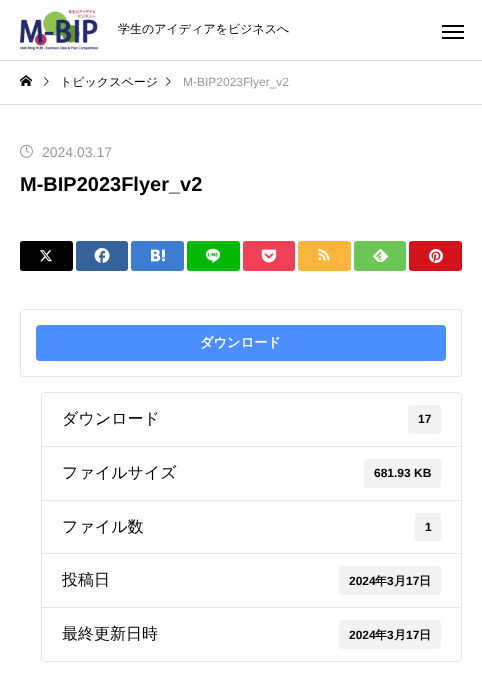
<svg xmlns="http://www.w3.org/2000/svg" width="482" height="691">
<style>
.a{font:500 12px WenQuanYi Zen Hei;fill:#000}
.b{font:12px Liberation Sans;fill:#999}
.c{font:14px Liberation Sans;fill:#999}
.d{font:bold 20px Liberation Sans;fill:#000}
.e{font:bold 13.25px WenQuanYi Zen Hei;fill:#fff}
.f{font:500 16px WenQuanYi Zen Hei;fill:#000}
.g{font:bold 12px Liberation Sans;fill:#000}
.h{font:bold 12px WenQuanYi Zen Hei;fill:#000}
</style>
<rect width="100%" height="100%" fill="#fff"/>
<image href="1.png" x="20" y="10" width="78" height="40"/>
<path fill="#000" d="M442 25h22v2H442z"/>
<path fill="#000" d="M442 31h22v2H442z"/>
<path fill="#000" d="M442 37h22v2H442z"/>
<path fill="#ddd" d="M0 60h482v1H0z"/>
<path fill="#ddd" d="M0 104h482v1H0z"/>
<image href="2.png" x="20" y="75" width="12" height="11"/>
<image href="3.png" x="44" y="77" width="5" height="9"/>
<image href="3.png" x="166" y="77" width="5" height="9"/>
<image href="4.png" x="20" y="144" width="13" height="14"/>
<rect fill="#000" x="20" y="241" width="53" height="30" rx="3"/>
<image href="5.png" x="40" y="250" width="12" height="12"/>
<rect fill="#35629a" x="76" y="241" width="52" height="30" rx="3"/>
<image href="6.png" x="94" y="248" width="16" height="15"/>
<rect fill="#3c7dd1" x="131" y="241" width="53" height="30" rx="3"/>
<image href="7.png" x="151" y="249" width="14" height="13"/>
<rect fill="#00b900" x="187" y="241" width="53" height="30" rx="3"/>
<image href="8.png" x="205" y="248" width="16" height="15"/>
<rect fill="#ee4056" x="243" y="241" width="52" height="30" rx="3"/>
<image href="9.png" x="261" y="249" width="16" height="14"/>
<rect fill="#ffb53c" x="298" y="241" width="53" height="30" rx="3"/>
<image href="10.png" x="318" y="249" width="12" height="12"/>
<rect fill="#6cc655" x="354" y="241" width="52" height="30" rx="3"/>
<image href="11.png" x="373" y="248" width="15" height="14"/>
<rect fill="#d4121c" x="409" y="241" width="53" height="30" rx="3"/>
<image href="12.png" x="429" y="249" width="14" height="14"/>
<rect fill="none" stroke="#e5e5e5" x="20.5" y="309.5" width="441" height="67" rx="2.5"/>
<rect fill="#4a8eff" x="36" y="325" width="410" height="36" rx="4"/>
<path fill="none" stroke="#e5e5e5" d="M45 392.5h413c2 0 3.5 1.5 3.5 3.5v50.5h-420v-50.5c0-2 1.5-3.5 3.5-3.5z"/>
<rect fill="#f2f2f2" x="408" y="405" width="33" height="29" rx="3"/>
<path fill="none" stroke="#e5e5e5" d="M41.5 446.5h420v54H41.5z"/>
<rect fill="#f2f2f2" x="364" y="459" width="77" height="29" rx="3"/>
<path fill="none" stroke="#e5e5e5" d="M41.5 500.5h420v53H41.5z"/>
<rect fill="#f2f2f2" x="415" y="513" width="26" height="28" rx="3"/>
<path fill="none" stroke="#e5e5e5" d="M41.5 553.5h420v54H41.5z"/>
<rect fill="#f2f2f2" x="339" y="566" width="102" height="29" rx="3"/>
<path fill="#fff" stroke="#e5e5e5" d="M41.5 607.5h420v50.5c0 2-1.5 3.5-3.5 3.5h-413c-2 0-3.5-1.5-3.5-3.5z"/>
<rect fill="#f2f2f2" x="339" y="620" width="102" height="29" rx="3"/>
<text class="a" x="118" y="33">学生のアイディアをビジネスへ</text>
<text class="a" x="60" y="86">トピックスページ</text>
<text class="b" x="183" y="86">M-BIP2023Flyer_v2</text>
<text class="c" x="42" y="157">2024.03.17</text>
<text class="d" x="20" y="191">M-BIP2023Flyer_v2</text>
<text class="e" x="200" y="347">ダウンロード</text>
<text class="f" x="62" y="424">ダウンロード</text>
<text class="g" x="418" y="423">17</text>
<text class="f" x="62" y="478">ファイルサイズ</text>
<text class="g" x="374" y="477">681.93 KB</text>
<text class="f" x="62" y="532">ファイル数</text>
<text class="g" x="425" y="531">1</text>
<text class="f" x="62" y="585">投稿日</text>
<text class="g" x="349" y="585">2024</text>
<text class="h" x="375" y="585">年</text>
<text class="g" x="387" y="585">3</text>
<text class="h" x="394" y="585">月</text>
<text class="g" x="406" y="585">17</text>
<text class="h" x="419" y="585">日</text>
<text class="f" x="62" y="639">最終更新日時</text>
<text class="g" x="349" y="639">2024</text>
<text class="h" x="375" y="639">年</text>
<text class="g" x="387" y="639">3</text>
<text class="h" x="394" y="639">月</text>
<text class="g" x="406" y="639">17</text>
<text class="h" x="419" y="639">日</text>
</svg>
